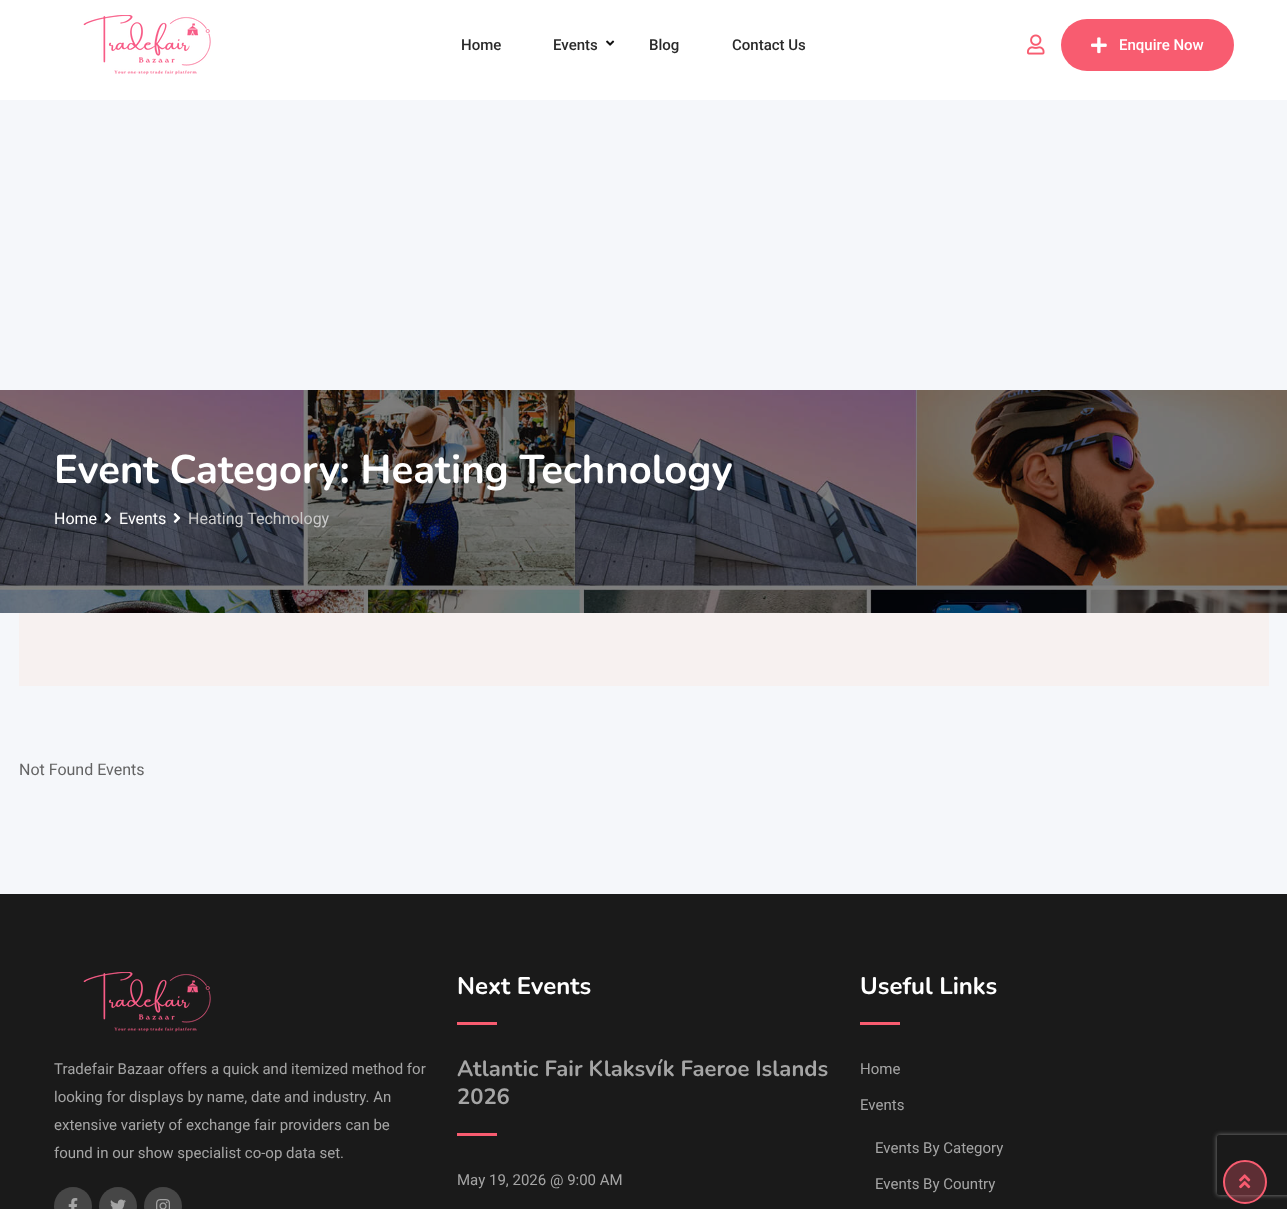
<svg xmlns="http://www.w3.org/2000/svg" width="1287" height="1209">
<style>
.a{font:500 15px Roboto;fill:#2a2a2a}
.b{font:500 15px Roboto;fill:#fff}
.c{font:200 40px Nunito;fill:#fff}
.d{font:16px Roboto;fill:#fff}
.e{font:16px Roboto;fill:#cacaca}
.f{font:16px Roboto;fill:#646464}
.g{font:15px Roboto;fill:#a5a5a5}
.h{font:200 24px Nunito;fill:#fff}
.i{font:200 22px Nunito;fill:#a5a5a5}
</style>
<defs>
<clipPath id="clip1"><path d="M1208 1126h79v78h-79zm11 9h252c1 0 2 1 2 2v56c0 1-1 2-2 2h-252c-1 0-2-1-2-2v-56c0-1 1-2 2-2z" clip-rule="evenodd"/></clipPath>
</defs>
<rect width="100%" height="100%" fill="#fff"/>
<image href="1.png" x="83" y="15" width="128" height="60"/>
<image href="2.png" x="606" y="40" width="9" height="6"/>
<image href="3.png" x="1027" y="34" width="18" height="21"/>
<rect fill="#f85c70" x="1061" y="19" width="173" height="52" rx="26"/>
<image href="4.png" x="1091" y="37" width="16" height="17"/>
<path fill="#f5f7fa" d="M0 100h1287v794H0z"/>
<image href="5.png" x="0" y="390" width="1287" height="223"/>
<image href="6.png" x="104" y="513" width="8" height="10"/>
<image href="7.png" x="173" y="513" width="8" height="10"/>
<path fill="#f7f1f0" d="M19 613h1250v73H19z"/>
<path fill="#1a1a1a" d="M0 894h1287v315H0z"/>
<image href="8.png" x="83" y="972" width="128" height="60"/>
<circle fill="#464646" cx="73" cy="1206" r="19"/>
<image href="9.png" x="68" y="1198" width="10" height="11"/>
<circle fill="#464646" cx="118" cy="1206" r="19"/>
<image href="10.png" x="110" y="1199" width="16" height="10"/>
<circle fill="#464646" cx="163" cy="1206" r="19"/>
<image href="11.png" x="156" y="1199" width="14" height="10"/>
<path fill="#f85c70" d="M457 1022h40v3H457z"/>
<path fill="#f85c70" d="M457 1133h40v3H457z"/>
<path fill="#f85c70" d="M860 1022h40v3H860z"/>
<g clip-path="url(#clip1)">
<rect fill="#808080" filter="blur(2.5px)" x="1217" y="1135" width="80" height="60" rx="2"/>
</g>
<circle fill="#f85c704d" stroke="#f85c70" stroke-width="2" cx="1245" cy="1182" r="21"/>
<image href="12.png" x="1239" y="1174" width="12" height="15"/>
<text class="a" x="461" y="50">Home</text>
<text class="a" x="553" y="50">Events</text>
<text class="a" x="649" y="50">Blog</text>
<text class="a" x="732" y="50">Contact Us</text>
<text class="b" x="1119" y="50">Enquire Now</text>
<text class="c" x="54" y="483">Event Category: Heating Technology</text>
<text class="d" x="54" y="524">Home</text>
<text class="d" x="119" y="524">Events</text>
<text class="e" x="188" y="524">Heating Technology</text>
<text class="f" x="19" y="775">Not Found Events</text>
<text class="g" x="54" y="1074">Tradefair Bazaar offers a quick and itemized method for</text>
<text class="g" x="54" y="1102">looking for displays by name, date and industry. An</text>
<text class="g" x="54" y="1130">extensive variety of exchange fair providers can be</text>
<text class="g" x="54" y="1158">found in our show specialist co-op data set.</text>
<text class="h" x="457" y="994">Next Events</text>
<text class="i" x="457" y="1076">Atlantic Fair Klaksvík Faeroe Islands</text>
<text class="i" x="457" y="1104">2026</text>
<text class="g" x="457" y="1185">May 19, 2026 @ 9:00 AM</text>
<text class="h" x="860" y="994">Useful Links</text>
<text class="g" x="860" y="1074">Home</text>
<text class="g" x="860" y="1110">Events</text>
<text class="g" x="875" y="1153">Events By Category</text>
<text class="g" x="875" y="1189">Events By Country</text>
</svg>
